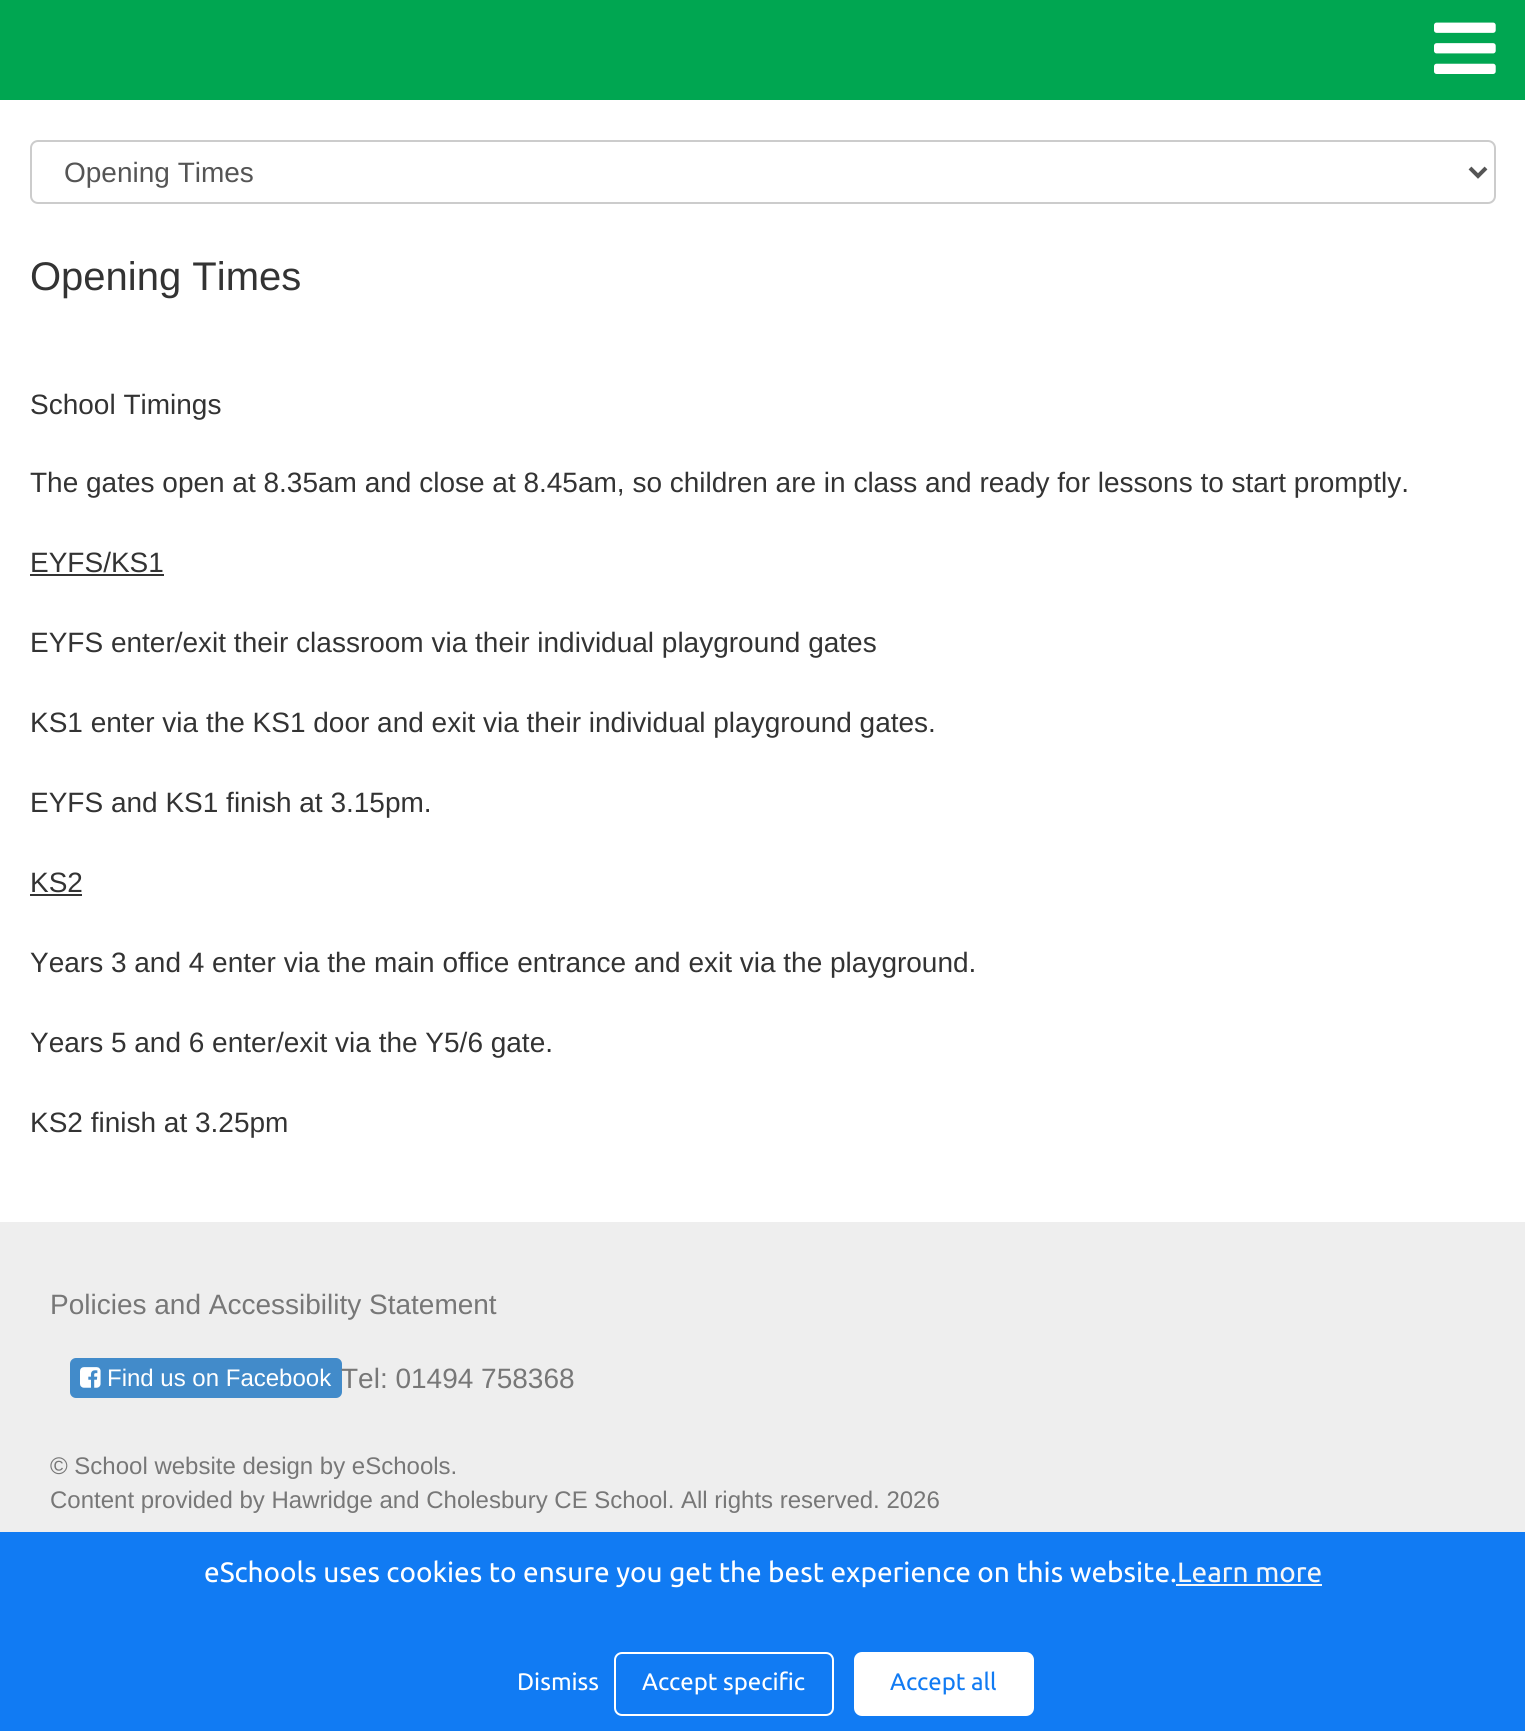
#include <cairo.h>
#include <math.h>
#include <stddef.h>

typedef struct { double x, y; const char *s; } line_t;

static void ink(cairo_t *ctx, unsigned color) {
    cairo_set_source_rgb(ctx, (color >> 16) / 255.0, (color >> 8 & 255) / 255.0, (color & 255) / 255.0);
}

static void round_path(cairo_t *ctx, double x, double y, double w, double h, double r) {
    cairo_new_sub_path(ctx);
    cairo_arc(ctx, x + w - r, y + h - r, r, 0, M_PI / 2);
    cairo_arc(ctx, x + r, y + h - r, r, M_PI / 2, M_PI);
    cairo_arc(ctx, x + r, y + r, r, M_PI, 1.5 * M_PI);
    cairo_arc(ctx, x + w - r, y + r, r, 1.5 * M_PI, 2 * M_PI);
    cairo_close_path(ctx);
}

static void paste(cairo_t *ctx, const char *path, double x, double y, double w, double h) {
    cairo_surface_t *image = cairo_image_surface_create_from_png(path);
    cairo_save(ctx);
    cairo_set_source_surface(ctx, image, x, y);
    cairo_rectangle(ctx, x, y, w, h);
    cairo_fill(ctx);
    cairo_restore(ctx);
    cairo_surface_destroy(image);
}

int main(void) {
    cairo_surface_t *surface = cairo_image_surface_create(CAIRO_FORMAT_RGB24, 1525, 1731);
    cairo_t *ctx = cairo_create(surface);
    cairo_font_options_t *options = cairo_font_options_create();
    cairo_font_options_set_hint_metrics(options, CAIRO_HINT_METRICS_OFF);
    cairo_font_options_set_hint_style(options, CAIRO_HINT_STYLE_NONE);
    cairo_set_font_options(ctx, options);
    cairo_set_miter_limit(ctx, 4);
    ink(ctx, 0x00A651);
    cairo_paint(ctx);
    paste(ctx, "media/1.png", 1434, 22, 62, 52);
    ink(ctx, 0xFFFFFF);
    cairo_rectangle(ctx, 0, 100, 1525, 1122);
    cairo_fill(ctx);
    round_path(ctx, 31, 141, 1464, 62, 7);
    ink(ctx, 0xCCCCCC);
    cairo_stroke(ctx);
    cairo_new_path(ctx);
    cairo_move_to(ctx, 1470, 168);
    cairo_line_to(ctx, 1478, 176);
    cairo_line_to(ctx, 1486, 168);
    ink(ctx, 0x555555);
    cairo_set_line_width(ctx, 4);
    cairo_stroke(ctx);
    cairo_select_font_face(ctx, "Liberation Sans", CAIRO_FONT_SLANT_NORMAL, CAIRO_FONT_WEIGHT_NORMAL);
    cairo_set_font_size(ctx, 28);
    cairo_move_to(ctx, 64, 182);
    cairo_show_text(ctx, "Opening Times");
    cairo_set_font_size(ctx, 40);
    ink(ctx, 0x333333);
    cairo_move_to(ctx, 30, 290);
    cairo_show_text(ctx, "Opening Times");
    cairo_set_font_size(ctx, 28);
    {
        static const line_t items[] = {
            {30, 414, "School Timings"},
            {30, 492, "The gates open at 8.35am and close at 8.45am, so children are in class and ready for lessons to start promptly."},
            {30, 572, "EYFS/KS1"},
        };
        for (size_t i = 0; i < sizeof items / sizeof *items; i++) {
            cairo_move_to(ctx, items[i].x, items[i].y);
            cairo_show_text(ctx, items[i].s);
        }
    }
    cairo_rectangle(ctx, 30, 574, 134, 2);
    cairo_fill(ctx);
    {
        static const line_t items[] = {
            {30, 652, "EYFS enter/exit their classroom via their individual playground gates"},
            {30, 732, "KS1 enter via the KS1 door and exit via their individual playground gates."},
            {30, 812, "EYFS and KS1 finish at 3.15pm."},
            {30, 892, "KS2"},
        };
        for (size_t i = 0; i < sizeof items / sizeof *items; i++) {
            cairo_move_to(ctx, items[i].x, items[i].y);
            cairo_show_text(ctx, items[i].s);
        }
    }
    cairo_rectangle(ctx, 30, 894, 52, 2);
    cairo_fill(ctx);
    {
        static const line_t items[] = {
            {30, 972, "Years 3 and 4 enter via the main office entrance and exit via the playground."},
            {30, 1052, "Years 5 and 6 enter/exit via the Y5/6 gate."},
            {30, 1132, "KS2 finish at 3.25pm"},
        };
        for (size_t i = 0; i < sizeof items / sizeof *items; i++) {
            cairo_move_to(ctx, items[i].x, items[i].y);
            cairo_show_text(ctx, items[i].s);
        }
    }
    ink(ctx, 0xEEEEEE);
    cairo_rectangle(ctx, 0, 1222, 1525, 310);
    cairo_fill(ctx);
    ink(ctx, 0x777777);
    cairo_move_to(ctx, 50, 1314);
    cairo_show_text(ctx, "Policies and Accessibility Statement");
    ink(ctx, 0x428BCA);
    round_path(ctx, 70, 1358, 272, 40, 6);
    cairo_fill(ctx);
    paste(ctx, "media/2.png", 80, 1367, 21, 21);
    cairo_set_font_size(ctx, 24);
    ink(ctx, 0xFFFFFF);
    cairo_move_to(ctx, 107, 1386);
    cairo_show_text(ctx, "Find us on Facebook");
    cairo_set_font_size(ctx, 28);
    ink(ctx, 0x777777);
    cairo_move_to(ctx, 341, 1388);
    cairo_show_text(ctx, "Tel: 01494 758368");
    cairo_set_font_size(ctx, 24);
    cairo_move_to(ctx, 50, 1474);
    cairo_show_text(ctx, "© School website design by eSchools.");
    cairo_move_to(ctx, 50, 1508);
    cairo_show_text(ctx, "Content provided by Hawridge and Cholesbury CE School. All rights reserved. 2026");
    ink(ctx, 0x117BF3);
    cairo_rectangle(ctx, 0, 1532, 1525, 199);
    cairo_fill(ctx);
    cairo_select_font_face(ctx, "Ubuntu", CAIRO_FONT_SLANT_NORMAL, CAIRO_FONT_WEIGHT_NORMAL);
    cairo_set_font_size(ctx, 28);
    ink(ctx, 0xFFFFFF);
    cairo_move_to(ctx, 204, 1582);
    cairo_show_text(ctx, "eSchools uses cookies to ensure you get the best experience on this website.");
    ink(ctx, 0xF7F7F7);
    cairo_rectangle(ctx, 1176, 1584, 146, 2);
    cairo_fill(ctx);
    cairo_move_to(ctx, 1177, 1582);
    cairo_show_text(ctx, "Learn more");
    cairo_set_font_size(ctx, 24);
    ink(ctx, 0xFFFFFF);
    cairo_move_to(ctx, 517, 1690);
    cairo_show_text(ctx, "Dismiss");
    round_path(ctx, 615, 1653, 218, 62, 7);
    cairo_set_line_width(ctx, 2);
    cairo_stroke(ctx);
    cairo_move_to(ctx, 642, 1690);
    cairo_show_text(ctx, "Accept specific");
    round_path(ctx, 855, 1653, 178, 62, 7);
    cairo_fill_preserve(ctx);
    cairo_stroke(ctx);
    ink(ctx, 0x117BF3);
    cairo_move_to(ctx, 890, 1690);
    cairo_show_text(ctx, "Accept all");
    cairo_surface_write_to_png(surface, "image.png");
    cairo_font_options_destroy(options);
    cairo_destroy(ctx);
    cairo_surface_destroy(surface);
    return 0;
}
